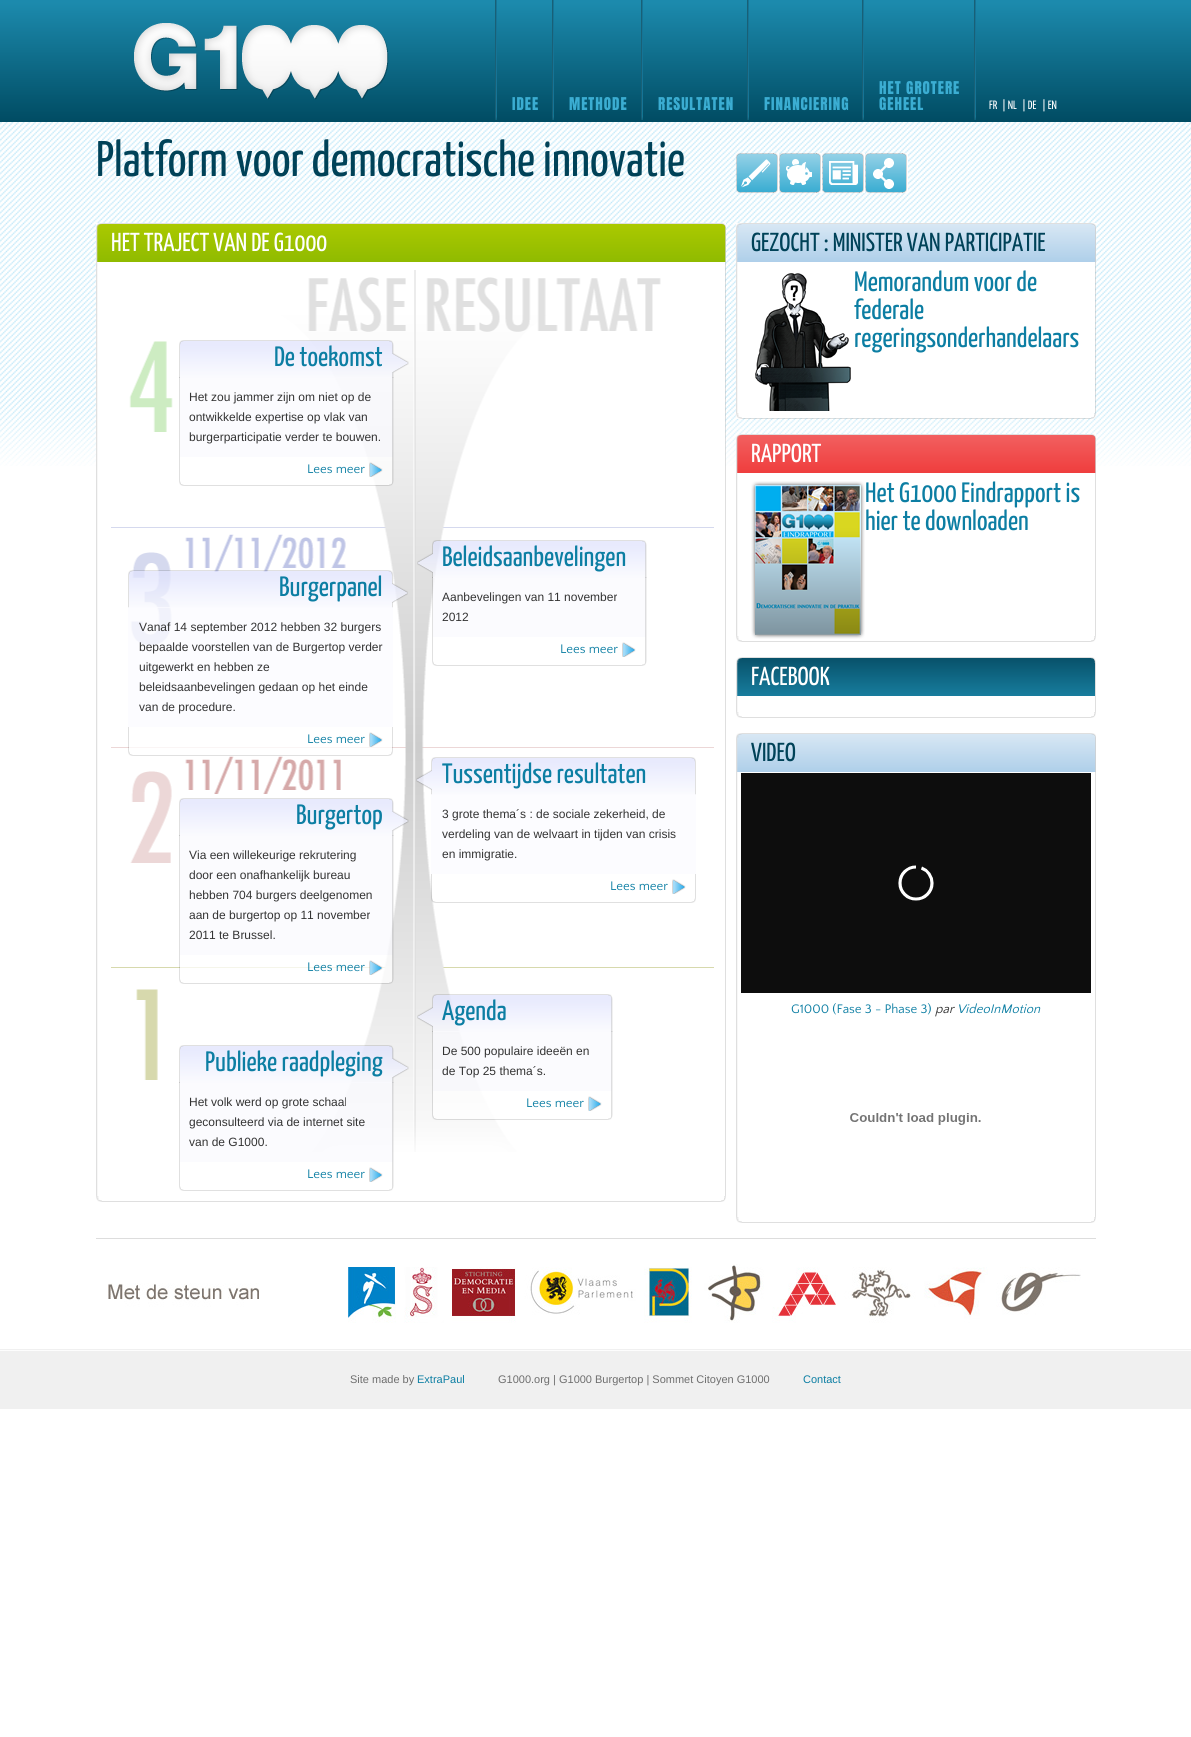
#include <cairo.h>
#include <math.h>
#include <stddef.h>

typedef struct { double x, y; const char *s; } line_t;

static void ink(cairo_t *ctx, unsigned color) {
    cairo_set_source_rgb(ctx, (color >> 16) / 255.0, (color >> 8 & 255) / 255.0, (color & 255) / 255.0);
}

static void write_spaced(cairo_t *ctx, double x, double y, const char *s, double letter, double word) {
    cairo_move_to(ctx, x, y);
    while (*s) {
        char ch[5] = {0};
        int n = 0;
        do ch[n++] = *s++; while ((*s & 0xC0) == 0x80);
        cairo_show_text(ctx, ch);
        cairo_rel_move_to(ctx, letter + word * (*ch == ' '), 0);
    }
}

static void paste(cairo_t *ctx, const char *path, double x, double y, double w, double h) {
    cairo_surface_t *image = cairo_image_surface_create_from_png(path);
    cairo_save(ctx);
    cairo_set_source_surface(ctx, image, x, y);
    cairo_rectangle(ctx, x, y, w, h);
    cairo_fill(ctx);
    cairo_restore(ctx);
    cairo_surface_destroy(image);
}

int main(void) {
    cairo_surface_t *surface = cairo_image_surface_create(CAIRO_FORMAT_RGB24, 1191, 1737);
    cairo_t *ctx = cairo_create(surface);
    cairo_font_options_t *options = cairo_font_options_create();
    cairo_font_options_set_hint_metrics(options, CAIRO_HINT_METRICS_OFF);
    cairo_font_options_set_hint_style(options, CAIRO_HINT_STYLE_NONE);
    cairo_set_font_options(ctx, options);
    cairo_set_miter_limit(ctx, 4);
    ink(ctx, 0xFFFFFF);
    cairo_paint(ctx);
    paste(ctx, "media/1.png", 0, 122, 1191, 344);
    paste(ctx, "media/2.png", 0, 0, 1191, 122);
    paste(ctx, "media/3.png", 134, 23, 255, 77);
    paste(ctx, "media/4.png", 495, 0, 2, 120);
    cairo_select_font_face(ctx, "Anton", CAIRO_FONT_SLANT_NORMAL, CAIRO_FONT_WEIGHT_NORMAL);
    cairo_set_font_size(ctx, 15);
    ink(ctx, 0x3BADD2);
    write_spaced(ctx, 512, 110, "IDEE", 1, 0);
    paste(ctx, "media/4.png", 552, 0, 2, 120);
    write_spaced(ctx, 569, 110, "METHODE", 1, 0);
    paste(ctx, "media/4.png", 641, 0, 2, 120);
    write_spaced(ctx, 658, 110, "RESULTATEN", 1, 0);
    paste(ctx, "media/4.png", 747, 0, 2, 120);
    write_spaced(ctx, 764, 110, "FINANCIERING", 1, 0);
    paste(ctx, "media/4.png", 862, 0, 2, 120);
    write_spaced(ctx, 879, 94, "HET GROTERE", 1, 0);
    write_spaced(ctx, 879, 110, "GEHEEL", 1, 0);
    paste(ctx, "media/4.png", 974, 0, 2, 120);
    cairo_select_font_face(ctx, "Yanone Kaffeesatz", CAIRO_FONT_SLANT_NORMAL, CAIRO_FONT_WEIGHT_NORMAL);
    cairo_set_font_size(ctx, 12);
    ink(ctx, 0xFFFFFF);
    {
        static const line_t items[] = {
            {989, 109, "FR"},
            {1002, 109, "| NL"},
            {1022, 109, "| DE"},
            {1042, 109, "| EN"},
        };
        for (size_t i = 0; i < sizeof items / sizeof *items; i++) {
            cairo_move_to(ctx, items[i].x, items[i].y);
            cairo_show_text(ctx, items[i].s);
        }
    }
    cairo_set_font_size(ctx, 50);
    ink(ctx, 0x004258);
    cairo_move_to(ctx, 96, 176);
    cairo_show_text(ctx, "Platform voor democratische innovatie");
    paste(ctx, "media/5.png", 773, 153, 6, 40);
    paste(ctx, "media/6.png", 736, 153, 38, 40);
    paste(ctx, "media/5.png", 816, 153, 6, 40);
    paste(ctx, "media/7.png", 779, 153, 38, 40);
    paste(ctx, "media/5.png", 859, 153, 6, 40);
    paste(ctx, "media/8.png", 822, 153, 38, 40);
    paste(ctx, "media/5.png", 902, 153, 6, 40);
    paste(ctx, "media/9.png", 865, 153, 38, 40);
    paste(ctx, "media/10.png", 96, 262, 630, 940);
    paste(ctx, "media/11.png", 102, 223, 624, 39);
    paste(ctx, "media/12.png", 96, 223, 6, 39);
    cairo_set_font_size(ctx, 26);
    ink(ctx, 0xFFFFFF);
    cairo_move_to(ctx, 111, 251);
    cairo_show_text(ctx, "HET TRAJECT VAN DE G1000");
    paste(ctx, "media/13.png", 96, 262, 6, 940);
    paste(ctx, "media/14.png", 111, 270, 603, 882);
    paste(ctx, "media/15.png", 179, 340, 230, 38);
    cairo_set_font_size(ctx, 28);
    ink(ctx, 0x0C7EA3);
    cairo_move_to(ctx, 274, 366);
    cairo_show_text(ctx, "De toekomst");
    paste(ctx, "media/16.png", 179, 377, 215, 80);
    cairo_select_font_face(ctx, "Liberation Sans", CAIRO_FONT_SLANT_NORMAL, CAIRO_FONT_WEIGHT_NORMAL);
    cairo_set_font_size(ctx, 12);
    ink(ctx, 0x333333);
    {
        static const line_t items[] = {
            {189, 401, "Het zou jammer zijn om niet op de"},
            {189, 421, "ontwikkelde expertise op vlak van"},
            {189, 441, "burgerparticipatie verder te bouwen."},
        };
        for (size_t i = 0; i < sizeof items / sizeof *items; i++) {
            cairo_move_to(ctx, items[i].x, items[i].y);
            cairo_show_text(ctx, items[i].s);
        }
    }
    paste(ctx, "media/17.png", 179, 457, 215, 29);
    paste(ctx, "media/18.png", 369, 462, 14, 15);
    cairo_select_font_face(ctx, "Quattrocento Sans", CAIRO_FONT_SLANT_NORMAL, CAIRO_FONT_WEIGHT_NORMAL);
    cairo_set_font_size(ctx, 13);
    ink(ctx, 0x0C7EA3);
    cairo_move_to(ctx, 307, 473);
    cairo_show_text(ctx, "Lees meer");
    paste(ctx, "media/19.png", 128, 570, 280, 38);
    cairo_select_font_face(ctx, "Yanone Kaffeesatz", CAIRO_FONT_SLANT_NORMAL, CAIRO_FONT_WEIGHT_NORMAL);
    cairo_set_font_size(ctx, 28);
    cairo_move_to(ctx, 279, 596);
    cairo_show_text(ctx, "Burgerpanel");
    cairo_set_source_rgba(ctx, 0.98, 0.98, 0.996, 0.75);
    cairo_rectangle(ctx, 128, 607, 265, 120);
    cairo_fill(ctx);
    cairo_select_font_face(ctx, "Liberation Sans", CAIRO_FONT_SLANT_NORMAL, CAIRO_FONT_WEIGHT_NORMAL);
    cairo_set_font_size(ctx, 12);
    ink(ctx, 0x333333);
    {
        static const line_t items[] = {
            {139, 631, "Vanaf 14 september 2012 hebben 32 burgers"},
            {139, 651, "bepaalde voorstellen van de Burgertop verder"},
            {139, 671, "uitgewerkt en hebben ze"},
            {139, 691, "beleidsaanbevelingen gedaan op het einde"},
            {139, 711, "van de procedure."},
        };
        for (size_t i = 0; i < sizeof items / sizeof *items; i++) {
            cairo_move_to(ctx, items[i].x, items[i].y);
            cairo_show_text(ctx, items[i].s);
        }
    }
    paste(ctx, "media/20.png", 128, 727, 265, 29);
    paste(ctx, "media/21.png", 369, 732, 14, 15);
    cairo_select_font_face(ctx, "Quattrocento Sans", CAIRO_FONT_SLANT_NORMAL, CAIRO_FONT_WEIGHT_NORMAL);
    cairo_set_font_size(ctx, 13);
    ink(ctx, 0x0C7EA3);
    cairo_move_to(ctx, 307, 743);
    cairo_show_text(ctx, "Lees meer");
    paste(ctx, "media/22.png", 179, 798, 230, 38);
    cairo_select_font_face(ctx, "Yanone Kaffeesatz", CAIRO_FONT_SLANT_NORMAL, CAIRO_FONT_WEIGHT_NORMAL);
    cairo_set_font_size(ctx, 28);
    cairo_move_to(ctx, 296, 824);
    cairo_show_text(ctx, "Burgertop");
    paste(ctx, "media/23.png", 179, 835, 215, 120);
    cairo_select_font_face(ctx, "Liberation Sans", CAIRO_FONT_SLANT_NORMAL, CAIRO_FONT_WEIGHT_NORMAL);
    cairo_set_font_size(ctx, 12);
    ink(ctx, 0x333333);
    {
        static const line_t items[] = {
            {189, 859, "Via een willekeurige rekrutering"},
            {189, 879, "door een onafhankelijk bureau"},
            {189, 899, "hebben 704 burgers deelgenomen"},
            {189, 919, "aan de burgertop op 11 november"},
            {189, 939, "2011 te Brussel."},
        };
        for (size_t i = 0; i < sizeof items / sizeof *items; i++) {
            cairo_move_to(ctx, items[i].x, items[i].y);
            cairo_show_text(ctx, items[i].s);
        }
    }
    paste(ctx, "media/24.png", 179, 955, 215, 29);
    paste(ctx, "media/25.png", 369, 960, 14, 15);
    cairo_select_font_face(ctx, "Quattrocento Sans", CAIRO_FONT_SLANT_NORMAL, CAIRO_FONT_WEIGHT_NORMAL);
    cairo_set_font_size(ctx, 13);
    ink(ctx, 0x0C7EA3);
    cairo_move_to(ctx, 307, 971);
    cairo_show_text(ctx, "Lees meer");
    paste(ctx, "media/26.png", 179, 1045, 230, 38);
    cairo_select_font_face(ctx, "Yanone Kaffeesatz", CAIRO_FONT_SLANT_NORMAL, CAIRO_FONT_WEIGHT_NORMAL);
    cairo_set_font_size(ctx, 28);
    cairo_move_to(ctx, 205, 1071);
    cairo_show_text(ctx, "Publieke raadpleging");
    paste(ctx, "media/27.png", 179, 1082, 215, 80);
    cairo_select_font_face(ctx, "Liberation Sans", CAIRO_FONT_SLANT_NORMAL, CAIRO_FONT_WEIGHT_NORMAL);
    cairo_set_font_size(ctx, 12);
    ink(ctx, 0x333333);
    {
        static const line_t items[] = {
            {189, 1106, "Het volk werd op grote schaal"},
            {189, 1126, "geconsulteerd via de internet site"},
            {189, 1146, "van de G1000."},
        };
        for (size_t i = 0; i < sizeof items / sizeof *items; i++) {
            cairo_move_to(ctx, items[i].x, items[i].y);
            cairo_show_text(ctx, items[i].s);
        }
    }
    paste(ctx, "media/28.png", 179, 1162, 215, 29);
    paste(ctx, "media/21.png", 369, 1167, 14, 15);
    cairo_select_font_face(ctx, "Quattrocento Sans", CAIRO_FONT_SLANT_NORMAL, CAIRO_FONT_WEIGHT_NORMAL);
    cairo_set_font_size(ctx, 13);
    ink(ctx, 0x0C7EA3);
    cairo_move_to(ctx, 307, 1178);
    cairo_show_text(ctx, "Lees meer");
    paste(ctx, "media/29.png", 417, 540, 230, 38);
    cairo_select_font_face(ctx, "Yanone Kaffeesatz", CAIRO_FONT_SLANT_NORMAL, CAIRO_FONT_WEIGHT_NORMAL);
    cairo_set_font_size(ctx, 28);
    cairo_move_to(ctx, 442, 566);
    cairo_show_text(ctx, "Beleidsaanbevelingen");
    paste(ctx, "media/30.png", 432, 577, 215, 60);
    cairo_select_font_face(ctx, "Liberation Sans", CAIRO_FONT_SLANT_NORMAL, CAIRO_FONT_WEIGHT_NORMAL);
    cairo_set_font_size(ctx, 12);
    ink(ctx, 0x333333);
    cairo_move_to(ctx, 442, 601);
    cairo_show_text(ctx, "Aanbevelingen van 11 november");
    cairo_move_to(ctx, 442, 621);
    cairo_show_text(ctx, "2012");
    paste(ctx, "media/28.png", 432, 637, 215, 29);
    paste(ctx, "media/21.png", 622, 642, 14, 15);
    cairo_select_font_face(ctx, "Quattrocento Sans", CAIRO_FONT_SLANT_NORMAL, CAIRO_FONT_WEIGHT_NORMAL);
    cairo_set_font_size(ctx, 13);
    ink(ctx, 0x0C7EA3);
    cairo_move_to(ctx, 560, 653);
    cairo_show_text(ctx, "Lees meer");
    paste(ctx, "media/31.png", 416, 757, 280, 38);
    cairo_select_font_face(ctx, "Yanone Kaffeesatz", CAIRO_FONT_SLANT_NORMAL, CAIRO_FONT_WEIGHT_NORMAL);
    cairo_set_font_size(ctx, 28);
    cairo_move_to(ctx, 442, 783);
    cairo_show_text(ctx, "Tussentijdse resultaten");
    cairo_set_source_rgba(ctx, 0.98, 0.98, 0.996, 0.75);
    cairo_rectangle(ctx, 431, 794, 265, 80);
    cairo_fill(ctx);
    cairo_select_font_face(ctx, "Liberation Sans", CAIRO_FONT_SLANT_NORMAL, CAIRO_FONT_WEIGHT_NORMAL);
    cairo_set_font_size(ctx, 12);
    ink(ctx, 0x333333);
    {
        static const line_t items[] = {
            {442, 818, "3 grote thema´s : de sociale zekerheid, de"},
            {442, 838, "verdeling van de welvaart in tijden van crisis"},
            {442, 858, "en immigratie."},
        };
        for (size_t i = 0; i < sizeof items / sizeof *items; i++) {
            cairo_move_to(ctx, items[i].x, items[i].y);
            cairo_show_text(ctx, items[i].s);
        }
    }
    paste(ctx, "media/32.png", 431, 874, 265, 29);
    paste(ctx, "media/21.png", 672, 879, 14, 15);
    cairo_select_font_face(ctx, "Quattrocento Sans", CAIRO_FONT_SLANT_NORMAL, CAIRO_FONT_WEIGHT_NORMAL);
    cairo_set_font_size(ctx, 13);
    ink(ctx, 0x0C7EA3);
    cairo_move_to(ctx, 610, 890);
    cairo_show_text(ctx, "Lees meer");
    paste(ctx, "media/33.png", 417, 994, 196, 38);
    cairo_select_font_face(ctx, "Yanone Kaffeesatz", CAIRO_FONT_SLANT_NORMAL, CAIRO_FONT_WEIGHT_NORMAL);
    cairo_set_font_size(ctx, 28);
    cairo_move_to(ctx, 442, 1020);
    cairo_show_text(ctx, "Agenda");
    paste(ctx, "media/34.png", 432, 1031, 181, 60);
    cairo_select_font_face(ctx, "Liberation Sans", CAIRO_FONT_SLANT_NORMAL, CAIRO_FONT_WEIGHT_NORMAL);
    cairo_set_font_size(ctx, 12);
    ink(ctx, 0x333333);
    cairo_move_to(ctx, 442, 1055);
    cairo_show_text(ctx, "De 500 populaire ideeën en");
    cairo_move_to(ctx, 442, 1075);
    cairo_show_text(ctx, "de Top 25 thema´s.");
    paste(ctx, "media/35.png", 432, 1091, 181, 29);
    paste(ctx, "media/21.png", 588, 1096, 14, 15);
    cairo_select_font_face(ctx, "Quattrocento Sans", CAIRO_FONT_SLANT_NORMAL, CAIRO_FONT_WEIGHT_NORMAL);
    cairo_set_font_size(ctx, 13);
    ink(ctx, 0x0C7EA3);
    cairo_move_to(ctx, 526, 1107);
    cairo_show_text(ctx, "Lees meer");
    paste(ctx, "media/36.png", 736, 262, 360, 157);
    paste(ctx, "media/37.png", 742, 223, 354, 39);
    paste(ctx, "media/38.png", 736, 223, 6, 39);
    cairo_select_font_face(ctx, "Yanone Kaffeesatz", CAIRO_FONT_SLANT_NORMAL, CAIRO_FONT_WEIGHT_NORMAL);
    cairo_set_font_size(ctx, 26);
    ink(ctx, 0x004258);
    cairo_move_to(ctx, 751, 251);
    cairo_show_text(ctx, "GEZOCHT : MINISTER VAN PARTICIPATIE");
    paste(ctx, "media/39.png", 736, 262, 7, 157);
    paste(ctx, "media/40.png", 755, 273, 96, 138);
    cairo_set_font_size(ctx, 28);
    ink(ctx, 0x0C7EA3);
    {
        static const line_t items[] = {
            {854, 291, "Memorandum voor de"},
            {854, 319, "federale"},
            {854, 347, "regeringsonderhandelaars"},
        };
        for (size_t i = 0; i < sizeof items / sizeof *items; i++) {
            cairo_move_to(ctx, items[i].x, items[i].y);
            cairo_show_text(ctx, items[i].s);
        }
    }
    paste(ctx, "media/41.png", 736, 473, 360, 169);
    paste(ctx, "media/42.png", 742, 434, 354, 39);
    paste(ctx, "media/43.png", 736, 434, 6, 39);
    cairo_set_font_size(ctx, 26);
    ink(ctx, 0xFFFFFF);
    cairo_move_to(ctx, 751, 462);
    cairo_show_text(ctx, "RAPPORT");
    paste(ctx, "media/44.png", 736, 473, 6, 169);
    paste(ctx, "media/45.png", 751, 481, 114, 158);
    cairo_set_font_size(ctx, 28);
    ink(ctx, 0x0C7EA3);
    cairo_move_to(ctx, 865, 502);
    cairo_show_text(ctx, "Het G1000 Eindrapport is");
    cairo_move_to(ctx, 865, 530);
    cairo_show_text(ctx, "hier te downloaden");
    paste(ctx, "media/46.png", 736, 696, 360, 22);
    paste(ctx, "media/47.png", 742, 657, 354, 39);
    paste(ctx, "media/48.png", 736, 657, 6, 39);
    cairo_set_font_size(ctx, 26);
    ink(ctx, 0xFFFFFF);
    cairo_move_to(ctx, 751, 685);
    cairo_show_text(ctx, "FACEBOOK");
    paste(ctx, "media/49.png", 736, 696, 6, 22);
    paste(ctx, "media/50.png", 736, 772, 360, 451);
    paste(ctx, "media/37.png", 742, 733, 354, 39);
    paste(ctx, "media/38.png", 736, 733, 6, 39);
    ink(ctx, 0x004258);
    cairo_move_to(ctx, 751, 761);
    cairo_show_text(ctx, "VIDEO");
    paste(ctx, "media/51.png", 736, 772, 6, 451);
    paste(ctx, "media/52.png", 741, 773, 350, 220);
    cairo_select_font_face(ctx, "Quattrocento Sans", CAIRO_FONT_SLANT_NORMAL, CAIRO_FONT_WEIGHT_NORMAL);
    cairo_set_font_size(ctx, 13);
    ink(ctx, 0x0C7EA3);
    cairo_move_to(ctx, 791, 1013);
    cairo_show_text(ctx, "G1000 (Fase 3 - Phase 3)");
    cairo_select_font_face(ctx, "Quattrocento Sans", CAIRO_FONT_SLANT_ITALIC, CAIRO_FONT_WEIGHT_NORMAL);
    ink(ctx, 0x333333);
    cairo_move_to(ctx, 935, 1013);
    cairo_show_text(ctx, "par");
    ink(ctx, 0x0C7EA3);
    cairo_move_to(ctx, 957, 1013);
    cairo_show_text(ctx, "VideoInMotion");
    paste(ctx, "media/53.png", 850, 1113, 131, 12);
    ink(ctx, 0xDDDDDD);
    cairo_rectangle(ctx, 96, 1238, 1000, 1);
    cairo_fill(ctx);
    paste(ctx, "media/54.png", 108, 1264, 973, 59);
    paste(ctx, "media/55.png", 0, 1349, 1191, 60);
    cairo_select_font_face(ctx, "Liberation Sans", CAIRO_FONT_SLANT_NORMAL, CAIRO_FONT_WEIGHT_NORMAL);
    cairo_set_font_size(ctx, 11);
    ink(ctx, 0x6E6E6E);
    cairo_move_to(ctx, 350, 1383);
    cairo_show_text(ctx, "Site made by");
    ink(ctx, 0x0C7EA3);
    cairo_move_to(ctx, 417, 1383);
    cairo_show_text(ctx, "ExtraPaul");
    ink(ctx, 0x6E6E6E);
    cairo_move_to(ctx, 498, 1383);
    cairo_show_text(ctx, "G1000.org | G1000 Burgertop | Sommet Citoyen G1000");
    ink(ctx, 0x0C7EA3);
    cairo_move_to(ctx, 803, 1383);
    cairo_show_text(ctx, "Contact");
    cairo_surface_write_to_png(surface, "image.png");
    cairo_font_options_destroy(options);
    cairo_destroy(ctx);
    cairo_surface_destroy(surface);
    return 0;
}
